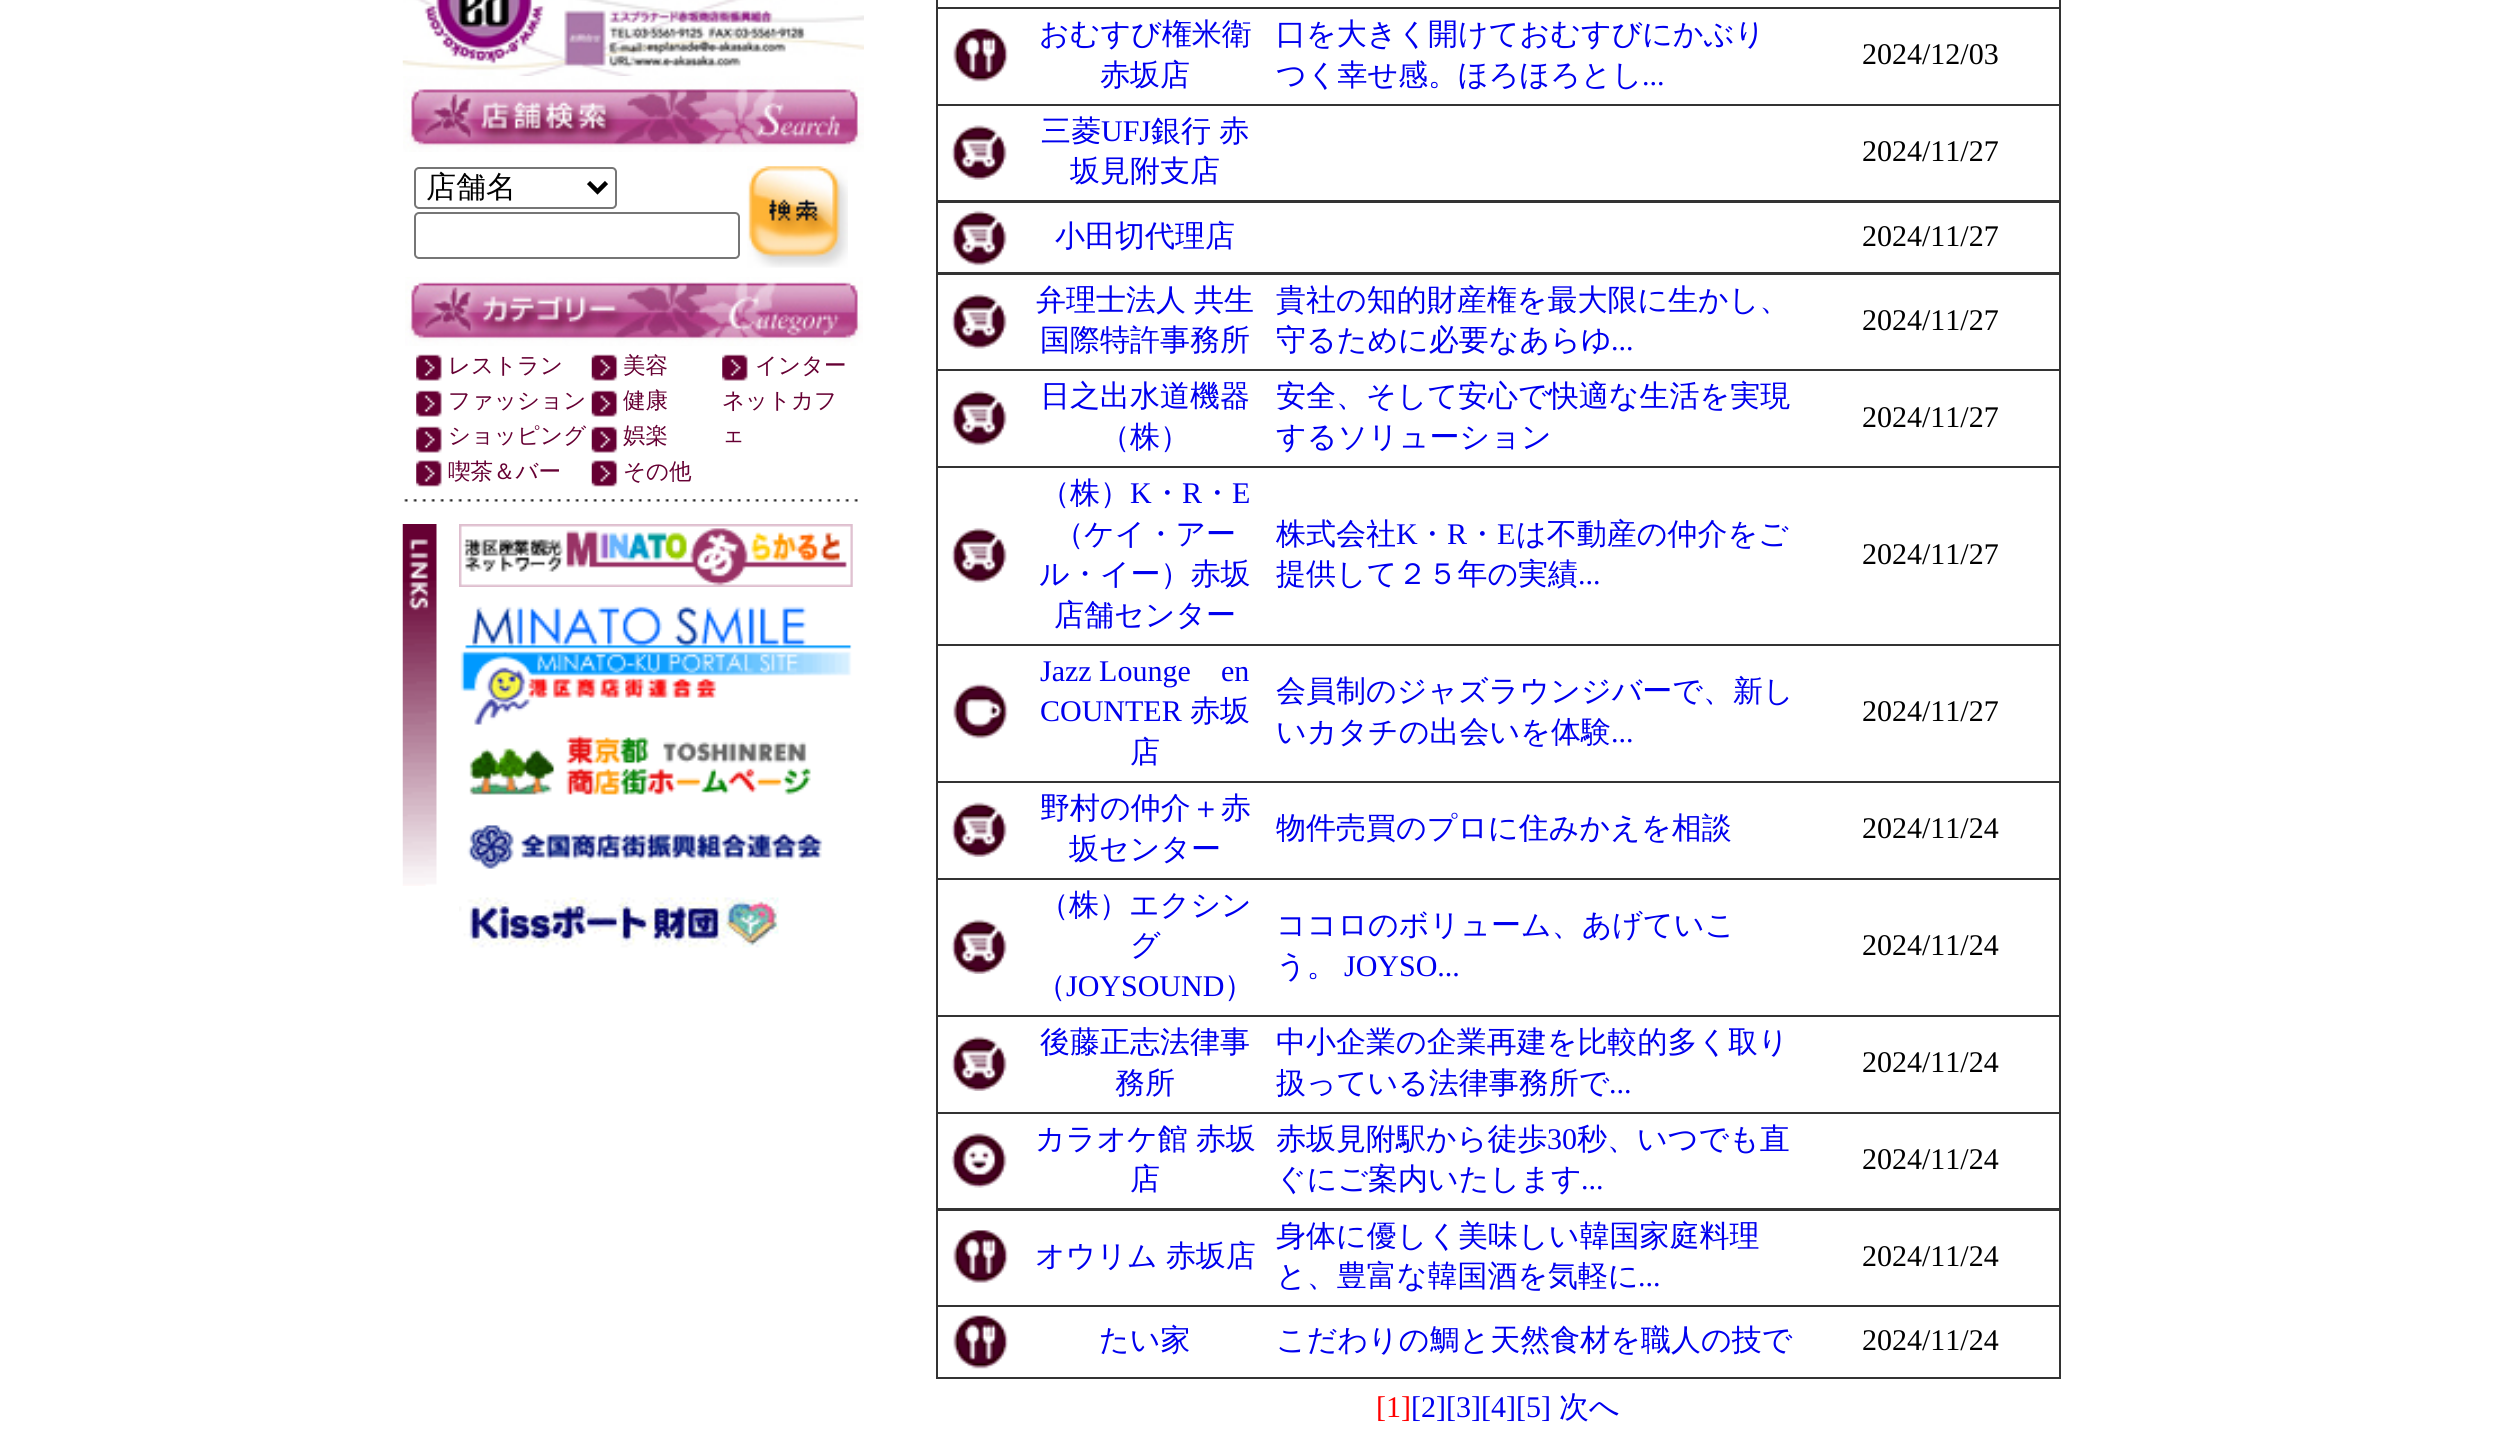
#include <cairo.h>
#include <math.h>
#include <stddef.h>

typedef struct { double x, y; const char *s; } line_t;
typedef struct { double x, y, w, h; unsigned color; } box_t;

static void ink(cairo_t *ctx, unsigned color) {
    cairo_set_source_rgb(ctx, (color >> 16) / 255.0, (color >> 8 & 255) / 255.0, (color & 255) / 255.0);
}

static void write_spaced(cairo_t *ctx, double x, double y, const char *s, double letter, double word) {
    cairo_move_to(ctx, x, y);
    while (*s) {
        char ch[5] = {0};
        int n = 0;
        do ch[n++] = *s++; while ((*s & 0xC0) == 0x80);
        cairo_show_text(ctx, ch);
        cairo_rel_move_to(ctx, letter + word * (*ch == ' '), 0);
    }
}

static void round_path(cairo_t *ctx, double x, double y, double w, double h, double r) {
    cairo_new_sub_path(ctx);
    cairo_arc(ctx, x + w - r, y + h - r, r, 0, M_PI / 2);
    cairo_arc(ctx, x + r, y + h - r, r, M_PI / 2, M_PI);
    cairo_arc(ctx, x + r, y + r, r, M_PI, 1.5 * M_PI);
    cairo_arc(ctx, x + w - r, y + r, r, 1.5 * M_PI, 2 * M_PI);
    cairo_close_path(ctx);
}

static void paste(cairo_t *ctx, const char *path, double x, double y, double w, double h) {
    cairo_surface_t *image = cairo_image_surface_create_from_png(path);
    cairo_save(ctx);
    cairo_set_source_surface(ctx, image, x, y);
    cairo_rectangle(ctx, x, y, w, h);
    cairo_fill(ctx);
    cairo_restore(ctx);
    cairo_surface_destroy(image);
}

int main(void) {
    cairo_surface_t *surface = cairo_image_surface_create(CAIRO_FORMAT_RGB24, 2503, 1444);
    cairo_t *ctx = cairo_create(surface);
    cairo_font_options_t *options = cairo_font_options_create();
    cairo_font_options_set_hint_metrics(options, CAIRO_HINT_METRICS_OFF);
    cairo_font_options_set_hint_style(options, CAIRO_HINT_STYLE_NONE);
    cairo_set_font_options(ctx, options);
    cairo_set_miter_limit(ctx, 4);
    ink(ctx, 0xFFFFFF);
    cairo_paint(ctx);
    paste(ctx, "media/1.png", 402, 0, 462, 77);
    paste(ctx, "media/2.png", 403, 76, 461, 76);
    round_path(ctx, 415, 168, 201, 40, 4);
    ink(ctx, 0x767676);
    cairo_stroke(ctx);
    cairo_new_path(ctx);
    cairo_move_to(ctx, 588.5, 182.5);
    cairo_line_to(ctx, 597.5, 191.5);
    cairo_line_to(ctx, 606.5, 182.5);
    ink(ctx, 0x000000);
    cairo_set_line_width(ctx, 4.5);
    cairo_stroke(ctx);
    cairo_select_font_face(ctx, "WenQuanYi Zen Hei Medium", CAIRO_FONT_SLANT_NORMAL, CAIRO_FONT_WEIGHT_NORMAL);
    cairo_set_font_size(ctx, 30);
    cairo_move_to(ctx, 426, 197);
    cairo_show_text(ctx, "店舗名");
    round_path(ctx, 415, 213, 324, 45, 4);
    ink(ctx, 0x767676);
    cairo_set_line_width(ctx, 2);
    cairo_stroke(ctx);
    paste(ctx, "media/3.png", 747, 166, 101, 102);
    paste(ctx, "media/4.png", 405, 277, 458, 69);
    paste(ctx, "media/5.png", 416, 354, 26, 27);
    cairo_set_font_size(ctx, 22.5);
    ink(ctx, 0x660033);
    cairo_move_to(ctx, 448, 373);
    cairo_show_text(ctx, "レストラン");
    paste(ctx, "media/5.png", 416, 390, 26, 27);
    cairo_move_to(ctx, 448, 408);
    cairo_show_text(ctx, "ファッション");
    paste(ctx, "media/5.png", 416, 426, 26, 27);
    cairo_move_to(ctx, 448, 443);
    cairo_show_text(ctx, "ショッピング");
    paste(ctx, "media/6.png", 416, 460, 26, 27);
    cairo_move_to(ctx, 448, 479);
    cairo_show_text(ctx, "喫茶＆バー");
    paste(ctx, "media/7.png", 591, 354, 27, 27);
    cairo_move_to(ctx, 623, 373);
    cairo_show_text(ctx, "美容");
    paste(ctx, "media/7.png", 591, 390, 27, 27);
    cairo_move_to(ctx, 623, 408);
    cairo_show_text(ctx, "健康");
    paste(ctx, "media/7.png", 591, 426, 27, 27);
    cairo_move_to(ctx, 623, 443);
    cairo_show_text(ctx, "娯楽");
    paste(ctx, "media/8.png", 591, 460, 27, 27);
    cairo_move_to(ctx, 623, 479);
    cairo_show_text(ctx, "その他");
    paste(ctx, "media/9.png", 722, 354, 26, 27);
    {
        static const line_t items[] = {
            {755, 373, "インター"},
            {722, 408, "ネットカフ"},
            {722, 442, "ェ"},
        };
        for (size_t i = 0; i < sizeof items / sizeof *items; i++) {
            cairo_move_to(ctx, items[i].x, items[i].y);
            cairo_show_text(ctx, items[i].s);
        }
    }
    paste(ctx, "media/10.png", 404, 499, 454, 3);
    paste(ctx, "media/11.png", 402, 524, 35, 362);
    paste(ctx, "media/12.png", 459, 524, 394, 63);
    paste(ctx, "media/13.png", 460, 606, 392, 119);
    paste(ctx, "media/14.png", 469, 735, 342, 60);
    paste(ctx, "media/15.png", 467, 825, 356, 44);
    paste(ctx, "media/16.png", 459, 897, 320, 51);
    {
        static const box_t items[] = {
            {936, 0, 1125, 1379, 0x333333},
            {938, 0, 1121, 7, 0xFFFFFF},
            {938, 9, 1121, 95, 0xFFFFFF},
        };
        for (size_t i = 0; i < sizeof items / sizeof *items; i++) {
            ink(ctx, items[i].color);
            cairo_rectangle(ctx, items[i].x, items[i].y, items[i].w, items[i].h);
            cairo_fill(ctx);
        }
    }
    paste(ctx, "media/17.png", 953, 28, 55, 54);
    cairo_set_font_size(ctx, 30);
    ink(ctx, 0x0000EE);
    {
        static const line_t items[] = {
            {1039, 44, "おむすび権米衛"},
            {1100, 85, "赤坂店"},
            {1276, 44, "口を大きく開けておむすびにかぶり"},
            {1276, 85, "つく幸せ感。ほろほろとし"},
        };
        for (size_t i = 0; i < sizeof items / sizeof *items; i++) {
            cairo_move_to(ctx, items[i].x, items[i].y);
            cairo_show_text(ctx, items[i].s);
        }
    }
    cairo_select_font_face(ctx, "Liberation Serif", CAIRO_FONT_SLANT_NORMAL, CAIRO_FONT_WEIGHT_NORMAL);
    cairo_move_to(ctx, 1642, 85);
    cairo_show_text(ctx, "...");
    ink(ctx, 0x000000);
    cairo_move_to(ctx, 1862, 64);
    cairo_show_text(ctx, "2024/12/03");
    ink(ctx, 0xFFFFFF);
    cairo_rectangle(ctx, 938, 106, 1121, 94);
    cairo_fill(ctx);
    paste(ctx, "media/18.png", 951, 125, 56, 55);
    cairo_select_font_face(ctx, "WenQuanYi Zen Hei Medium", CAIRO_FONT_SLANT_NORMAL, CAIRO_FONT_WEIGHT_NORMAL);
    ink(ctx, 0x0000EE);
    cairo_move_to(ctx, 1041, 141);
    cairo_show_text(ctx, "三菱");
    cairo_select_font_face(ctx, "Liberation Serif", CAIRO_FONT_SLANT_NORMAL, CAIRO_FONT_WEIGHT_NORMAL);
    cairo_move_to(ctx, 1101, 141);
    cairo_show_text(ctx, "UFJ");
    cairo_select_font_face(ctx, "WenQuanYi Zen Hei Medium", CAIRO_FONT_SLANT_NORMAL, CAIRO_FONT_WEIGHT_NORMAL);
    write_spaced(ctx, 1151, 141, "銀行 赤", 0, -1);
    cairo_move_to(ctx, 1070, 181);
    cairo_show_text(ctx, "坂見附支店");
    cairo_select_font_face(ctx, "Liberation Serif", CAIRO_FONT_SLANT_NORMAL, CAIRO_FONT_WEIGHT_NORMAL);
    ink(ctx, 0x000000);
    cairo_move_to(ctx, 1862, 161);
    cairo_show_text(ctx, "2024/11/27");
    ink(ctx, 0xFFFFFF);
    cairo_rectangle(ctx, 938, 203, 1121, 69);
    cairo_fill(ctx);
    paste(ctx, "media/19.png", 951, 210, 56, 56);
    cairo_select_font_face(ctx, "WenQuanYi Zen Hei Medium", CAIRO_FONT_SLANT_NORMAL, CAIRO_FONT_WEIGHT_NORMAL);
    ink(ctx, 0x0000EE);
    cairo_move_to(ctx, 1055, 246);
    cairo_show_text(ctx, "小田切代理店");
    cairo_select_font_face(ctx, "Liberation Serif", CAIRO_FONT_SLANT_NORMAL, CAIRO_FONT_WEIGHT_NORMAL);
    ink(ctx, 0x000000);
    cairo_move_to(ctx, 1862, 246);
    cairo_show_text(ctx, "2024/11/27");
    ink(ctx, 0xFFFFFF);
    cairo_rectangle(ctx, 938, 275, 1121, 94);
    cairo_fill(ctx);
    paste(ctx, "media/20.png", 951, 294, 56, 55);
    cairo_select_font_face(ctx, "WenQuanYi Zen Hei Medium", CAIRO_FONT_SLANT_NORMAL, CAIRO_FONT_WEIGHT_NORMAL);
    ink(ctx, 0x0000EE);
    write_spaced(ctx, 1036, 310, "弁理士法人 共生", 0, -1);
    {
        static const line_t items[] = {
            {1040, 350, "国際特許事務所"},
            {1276, 310, "貴社の知的財産権を最大限に生かし、"},
            {1276, 350, "守るために必要なあらゆ"},
        };
        for (size_t i = 0; i < sizeof items / sizeof *items; i++) {
            cairo_move_to(ctx, items[i].x, items[i].y);
            cairo_show_text(ctx, items[i].s);
        }
    }
    cairo_select_font_face(ctx, "Liberation Serif", CAIRO_FONT_SLANT_NORMAL, CAIRO_FONT_WEIGHT_NORMAL);
    cairo_move_to(ctx, 1611, 350);
    cairo_show_text(ctx, "...");
    ink(ctx, 0x000000);
    cairo_move_to(ctx, 1862, 330);
    cairo_show_text(ctx, "2024/11/27");
    ink(ctx, 0xFFFFFF);
    cairo_rectangle(ctx, 938, 371, 1121, 95);
    cairo_fill(ctx);
    paste(ctx, "media/19.png", 951, 390, 56, 56);
    cairo_select_font_face(ctx, "WenQuanYi Zen Hei Medium", CAIRO_FONT_SLANT_NORMAL, CAIRO_FONT_WEIGHT_NORMAL);
    ink(ctx, 0x0000EE);
    {
        static const line_t items[] = {
            {1040, 406, "日之出水道機器"},
            {1100, 447, "（株）"},
            {1276, 406, "安全、そして安心で快適な生活を実現"},
            {1276, 447, "するソリューション"},
        };
        for (size_t i = 0; i < sizeof items / sizeof *items; i++) {
            cairo_move_to(ctx, items[i].x, items[i].y);
            cairo_show_text(ctx, items[i].s);
        }
    }
    cairo_select_font_face(ctx, "Liberation Serif", CAIRO_FONT_SLANT_NORMAL, CAIRO_FONT_WEIGHT_NORMAL);
    ink(ctx, 0x000000);
    cairo_move_to(ctx, 1862, 427);
    cairo_show_text(ctx, "2024/11/27");
    ink(ctx, 0xFFFFFF);
    cairo_rectangle(ctx, 938, 468, 1121, 176);
    cairo_fill(ctx);
    paste(ctx, "media/20.png", 951, 528, 56, 55);
    cairo_select_font_face(ctx, "WenQuanYi Zen Hei Medium", CAIRO_FONT_SLANT_NORMAL, CAIRO_FONT_WEIGHT_NORMAL);
    ink(ctx, 0x0000EE);
    cairo_move_to(ctx, 1040, 503);
    cairo_show_text(ctx, "（株）");
    cairo_select_font_face(ctx, "Liberation Serif", CAIRO_FONT_SLANT_NORMAL, CAIRO_FONT_WEIGHT_NORMAL);
    cairo_move_to(ctx, 1130, 503);
    cairo_show_text(ctx, "K");
    cairo_select_font_face(ctx, "WenQuanYi Zen Hei Medium", CAIRO_FONT_SLANT_NORMAL, CAIRO_FONT_WEIGHT_NORMAL);
    cairo_move_to(ctx, 1152, 503);
    cairo_show_text(ctx, "・");
    cairo_select_font_face(ctx, "Liberation Serif", CAIRO_FONT_SLANT_NORMAL, CAIRO_FONT_WEIGHT_NORMAL);
    cairo_move_to(ctx, 1182, 503);
    cairo_show_text(ctx, "R");
    cairo_select_font_face(ctx, "WenQuanYi Zen Hei Medium", CAIRO_FONT_SLANT_NORMAL, CAIRO_FONT_WEIGHT_NORMAL);
    cairo_move_to(ctx, 1202, 503);
    cairo_show_text(ctx, "・");
    cairo_select_font_face(ctx, "Liberation Serif", CAIRO_FONT_SLANT_NORMAL, CAIRO_FONT_WEIGHT_NORMAL);
    cairo_move_to(ctx, 1232, 503);
    cairo_show_text(ctx, "E");
    cairo_select_font_face(ctx, "WenQuanYi Zen Hei Medium", CAIRO_FONT_SLANT_NORMAL, CAIRO_FONT_WEIGHT_NORMAL);
    {
        static const line_t items[] = {
            {1054, 544, "（ケイ・アー"},
            {1039, 584, "ル・イー）赤坂"},
            {1054, 625, "店舗センター"},
            {1276, 544, "株式会社"},
        };
        for (size_t i = 0; i < sizeof items / sizeof *items; i++) {
            cairo_move_to(ctx, items[i].x, items[i].y);
            cairo_show_text(ctx, items[i].s);
        }
    }
    cairo_select_font_face(ctx, "Liberation Serif", CAIRO_FONT_SLANT_NORMAL, CAIRO_FONT_WEIGHT_NORMAL);
    cairo_move_to(ctx, 1396, 544);
    cairo_show_text(ctx, "K");
    cairo_select_font_face(ctx, "WenQuanYi Zen Hei Medium", CAIRO_FONT_SLANT_NORMAL, CAIRO_FONT_WEIGHT_NORMAL);
    cairo_move_to(ctx, 1417, 544);
    cairo_show_text(ctx, "・");
    cairo_select_font_face(ctx, "Liberation Serif", CAIRO_FONT_SLANT_NORMAL, CAIRO_FONT_WEIGHT_NORMAL);
    cairo_move_to(ctx, 1447, 544);
    cairo_show_text(ctx, "R");
    cairo_select_font_face(ctx, "WenQuanYi Zen Hei Medium", CAIRO_FONT_SLANT_NORMAL, CAIRO_FONT_WEIGHT_NORMAL);
    cairo_move_to(ctx, 1467, 544);
    cairo_show_text(ctx, "・");
    cairo_select_font_face(ctx, "Liberation Serif", CAIRO_FONT_SLANT_NORMAL, CAIRO_FONT_WEIGHT_NORMAL);
    cairo_move_to(ctx, 1497, 544);
    cairo_show_text(ctx, "E");
    cairo_select_font_face(ctx, "WenQuanYi Zen Hei Medium", CAIRO_FONT_SLANT_NORMAL, CAIRO_FONT_WEIGHT_NORMAL);
    cairo_move_to(ctx, 1516, 544);
    cairo_show_text(ctx, "は不動産の仲介をご");
    cairo_move_to(ctx, 1276, 584);
    cairo_show_text(ctx, "提供して２５年の実績");
    cairo_select_font_face(ctx, "Liberation Serif", CAIRO_FONT_SLANT_NORMAL, CAIRO_FONT_WEIGHT_NORMAL);
    cairo_move_to(ctx, 1578, 584);
    cairo_show_text(ctx, "...");
    ink(ctx, 0x000000);
    cairo_move_to(ctx, 1862, 564);
    cairo_show_text(ctx, "2024/11/27");
    ink(ctx, 0xFFFFFF);
    cairo_rectangle(ctx, 938, 646, 1121, 135);
    cairo_fill(ctx);
    paste(ctx, "media/21.png", 953, 683, 55, 56);
    ink(ctx, 0x0000EE);
    {
        static const line_t items[] = {
            {1040, 681, "Jazz Lounge"},
            {1221, 681, "en"},
            {1040, 721, "COUNTER"},
        };
        for (size_t i = 0; i < sizeof items / sizeof *items; i++) {
            cairo_move_to(ctx, items[i].x, items[i].y);
            cairo_show_text(ctx, items[i].s);
        }
    }
    cairo_select_font_face(ctx, "WenQuanYi Zen Hei Medium", CAIRO_FONT_SLANT_NORMAL, CAIRO_FONT_WEIGHT_NORMAL);
    {
        static const line_t items[] = {
            {1190, 721, "赤坂"},
            {1130, 762, "店"},
            {1276, 701, "会員制のジャズラウンジバーで、新し"},
            {1276, 742, "いカタチの出会いを体験"},
        };
        for (size_t i = 0; i < sizeof items / sizeof *items; i++) {
            cairo_move_to(ctx, items[i].x, items[i].y);
            cairo_show_text(ctx, items[i].s);
        }
    }
    cairo_select_font_face(ctx, "Liberation Serif", CAIRO_FONT_SLANT_NORMAL, CAIRO_FONT_WEIGHT_NORMAL);
    cairo_move_to(ctx, 1611, 742);
    cairo_show_text(ctx, "...");
    ink(ctx, 0x000000);
    cairo_move_to(ctx, 1862, 721);
    cairo_show_text(ctx, "2024/11/27");
    ink(ctx, 0xFFFFFF);
    cairo_rectangle(ctx, 938, 783, 1121, 95);
    cairo_fill(ctx);
    paste(ctx, "media/22.png", 951, 802, 56, 55);
    cairo_select_font_face(ctx, "WenQuanYi Zen Hei Medium", CAIRO_FONT_SLANT_NORMAL, CAIRO_FONT_WEIGHT_NORMAL);
    ink(ctx, 0x0000EE);
    {
        static const line_t items[] = {
            {1040, 818, "野村の仲介＋赤"},
            {1069, 859, "坂センター"},
            {1276, 838, "物件売買のプロに住みかえを相談"},
        };
        for (size_t i = 0; i < sizeof items / sizeof *items; i++) {
            cairo_move_to(ctx, items[i].x, items[i].y);
            cairo_show_text(ctx, items[i].s);
        }
    }
    cairo_select_font_face(ctx, "Liberation Serif", CAIRO_FONT_SLANT_NORMAL, CAIRO_FONT_WEIGHT_NORMAL);
    ink(ctx, 0x000000);
    cairo_move_to(ctx, 1862, 838);
    cairo_show_text(ctx, "2024/11/24");
    ink(ctx, 0xFFFFFF);
    cairo_rectangle(ctx, 938, 880, 1121, 135);
    cairo_fill(ctx);
    paste(ctx, "media/22.png", 951, 919, 56, 55);
    cairo_select_font_face(ctx, "WenQuanYi Zen Hei Medium", CAIRO_FONT_SLANT_NORMAL, CAIRO_FONT_WEIGHT_NORMAL);
    ink(ctx, 0x0000EE);
    {
        static const line_t items[] = {
            {1039, 915, "（株）エクシン"},
            {1130, 955, "グ"},
            {1036, 996, "（"},
        };
        for (size_t i = 0; i < sizeof items / sizeof *items; i++) {
            cairo_move_to(ctx, items[i].x, items[i].y);
            cairo_show_text(ctx, items[i].s);
        }
    }
    cairo_select_font_face(ctx, "Liberation Serif", CAIRO_FONT_SLANT_NORMAL, CAIRO_FONT_WEIGHT_NORMAL);
    cairo_move_to(ctx, 1066, 996);
    cairo_show_text(ctx, "JOYSOUND");
    cairo_select_font_face(ctx, "WenQuanYi Zen Hei Medium", CAIRO_FONT_SLANT_NORMAL, CAIRO_FONT_WEIGHT_NORMAL);
    {
        static const line_t items[] = {
            {1224, 996, "）"},
            {1276, 935, "ココロのボリューム、あげていこ"},
            {1276, 976, "う。"},
        };
        for (size_t i = 0; i < sizeof items / sizeof *items; i++) {
            cairo_move_to(ctx, items[i].x, items[i].y);
            cairo_show_text(ctx, items[i].s);
        }
    }
    cairo_select_font_face(ctx, "Liberation Serif", CAIRO_FONT_SLANT_NORMAL, CAIRO_FONT_WEIGHT_NORMAL);
    cairo_move_to(ctx, 1344, 976);
    cairo_show_text(ctx, "JOYSO...");
    ink(ctx, 0x000000);
    cairo_move_to(ctx, 1862, 955);
    cairo_show_text(ctx, "2024/11/24");
    ink(ctx, 0xFFFFFF);
    cairo_rectangle(ctx, 938, 1017, 1121, 95);
    cairo_fill(ctx);
    paste(ctx, "media/22.png", 951, 1036, 56, 55);
    cairo_select_font_face(ctx, "WenQuanYi Zen Hei Medium", CAIRO_FONT_SLANT_NORMAL, CAIRO_FONT_WEIGHT_NORMAL);
    ink(ctx, 0x0000EE);
    {
        static const line_t items[] = {
            {1040, 1052, "後藤正志法律事"},
            {1115, 1093, "務所"},
            {1276, 1052, "中小企業の企業再建を比較的多く取り"},
            {1276, 1093, "扱っている法律事務所で"},
        };
        for (size_t i = 0; i < sizeof items / sizeof *items; i++) {
            cairo_move_to(ctx, items[i].x, items[i].y);
            cairo_show_text(ctx, items[i].s);
        }
    }
    cairo_select_font_face(ctx, "Liberation Serif", CAIRO_FONT_SLANT_NORMAL, CAIRO_FONT_WEIGHT_NORMAL);
    cairo_move_to(ctx, 1609, 1093);
    cairo_show_text(ctx, "...");
    ink(ctx, 0x000000);
    cairo_move_to(ctx, 1862, 1072);
    cairo_show_text(ctx, "2024/11/24");
    ink(ctx, 0xFFFFFF);
    cairo_rectangle(ctx, 938, 1114, 1121, 94);
    cairo_fill(ctx);
    paste(ctx, "media/23.png", 951, 1133, 56, 55);
    cairo_select_font_face(ctx, "WenQuanYi Zen Hei Medium", CAIRO_FONT_SLANT_NORMAL, CAIRO_FONT_WEIGHT_NORMAL);
    ink(ctx, 0x0000EE);
    write_spaced(ctx, 1035, 1149, "カラオケ館 赤坂", 0, -1);
    cairo_move_to(ctx, 1130, 1189);
    cairo_show_text(ctx, "店");
    cairo_move_to(ctx, 1276, 1149);
    cairo_show_text(ctx, "赤坂見附駅から徒歩");
    cairo_select_font_face(ctx, "Liberation Serif", CAIRO_FONT_SLANT_NORMAL, CAIRO_FONT_WEIGHT_NORMAL);
    cairo_move_to(ctx, 1547, 1149);
    cairo_show_text(ctx, "30");
    cairo_select_font_face(ctx, "WenQuanYi Zen Hei Medium", CAIRO_FONT_SLANT_NORMAL, CAIRO_FONT_WEIGHT_NORMAL);
    cairo_move_to(ctx, 1577, 1149);
    cairo_show_text(ctx, "秒、いつでも直");
    cairo_move_to(ctx, 1276, 1189);
    cairo_show_text(ctx, "ぐにご案内いたします");
    cairo_select_font_face(ctx, "Liberation Serif", CAIRO_FONT_SLANT_NORMAL, CAIRO_FONT_WEIGHT_NORMAL);
    cairo_move_to(ctx, 1581, 1189);
    cairo_show_text(ctx, "...");
    ink(ctx, 0x000000);
    cairo_move_to(ctx, 1862, 1169);
    cairo_show_text(ctx, "2024/11/24");
    ink(ctx, 0xFFFFFF);
    cairo_rectangle(ctx, 938, 1211, 1121, 94);
    cairo_fill(ctx);
    paste(ctx, "media/24.png", 953, 1230, 55, 53);
    cairo_select_font_face(ctx, "WenQuanYi Zen Hei Medium", CAIRO_FONT_SLANT_NORMAL, CAIRO_FONT_WEIGHT_NORMAL);
    ink(ctx, 0x0000EE);
    write_spaced(ctx, 1035, 1266, "オウリム 赤坂店", 0, -1);
    cairo_move_to(ctx, 1276, 1246);
    cairo_show_text(ctx, "身体に優しく美味しい韓国家庭料理");
    cairo_move_to(ctx, 1276, 1286);
    cairo_show_text(ctx, "と、豊富な韓国酒を気軽に");
    cairo_select_font_face(ctx, "Liberation Serif", CAIRO_FONT_SLANT_NORMAL, CAIRO_FONT_WEIGHT_NORMAL);
    cairo_move_to(ctx, 1638, 1286);
    cairo_show_text(ctx, "...");
    ink(ctx, 0x000000);
    cairo_move_to(ctx, 1862, 1266);
    cairo_show_text(ctx, "2024/11/24");
    ink(ctx, 0xFFFFFF);
    cairo_rectangle(ctx, 938, 1307, 1121, 70);
    cairo_fill(ctx);
    paste(ctx, "media/17.png", 953, 1315, 55, 54);
    cairo_select_font_face(ctx, "WenQuanYi Zen Hei Medium", CAIRO_FONT_SLANT_NORMAL, CAIRO_FONT_WEIGHT_NORMAL);
    ink(ctx, 0x0000EE);
    cairo_move_to(ctx, 1099, 1350);
    cairo_show_text(ctx, "たい家");
    cairo_move_to(ctx, 1276, 1350);
    cairo_show_text(ctx, "こだわりの鯛と天然食材を職人の技で");
    cairo_select_font_face(ctx, "Liberation Serif", CAIRO_FONT_SLANT_NORMAL, CAIRO_FONT_WEIGHT_NORMAL);
    ink(ctx, 0x000000);
    cairo_move_to(ctx, 1862, 1350);
    cairo_show_text(ctx, "2024/11/24");
    ink(ctx, 0xFF0000);
    cairo_move_to(ctx, 1376, 1417);
    cairo_show_text(ctx, "[1]");
    ink(ctx, 0x0000EE);
    cairo_move_to(ctx, 1411, 1417);
    cairo_show_text(ctx, "[2][3][4][5]");
    cairo_select_font_face(ctx, "WenQuanYi Zen Hei Medium", CAIRO_FONT_SLANT_NORMAL, CAIRO_FONT_WEIGHT_NORMAL);
    cairo_move_to(ctx, 1559, 1417);
    cairo_show_text(ctx, "次へ");
    cairo_surface_write_to_png(surface, "image.png");
    cairo_font_options_destroy(options);
    cairo_destroy(ctx);
    cairo_surface_destroy(surface);
    return 0;
}
